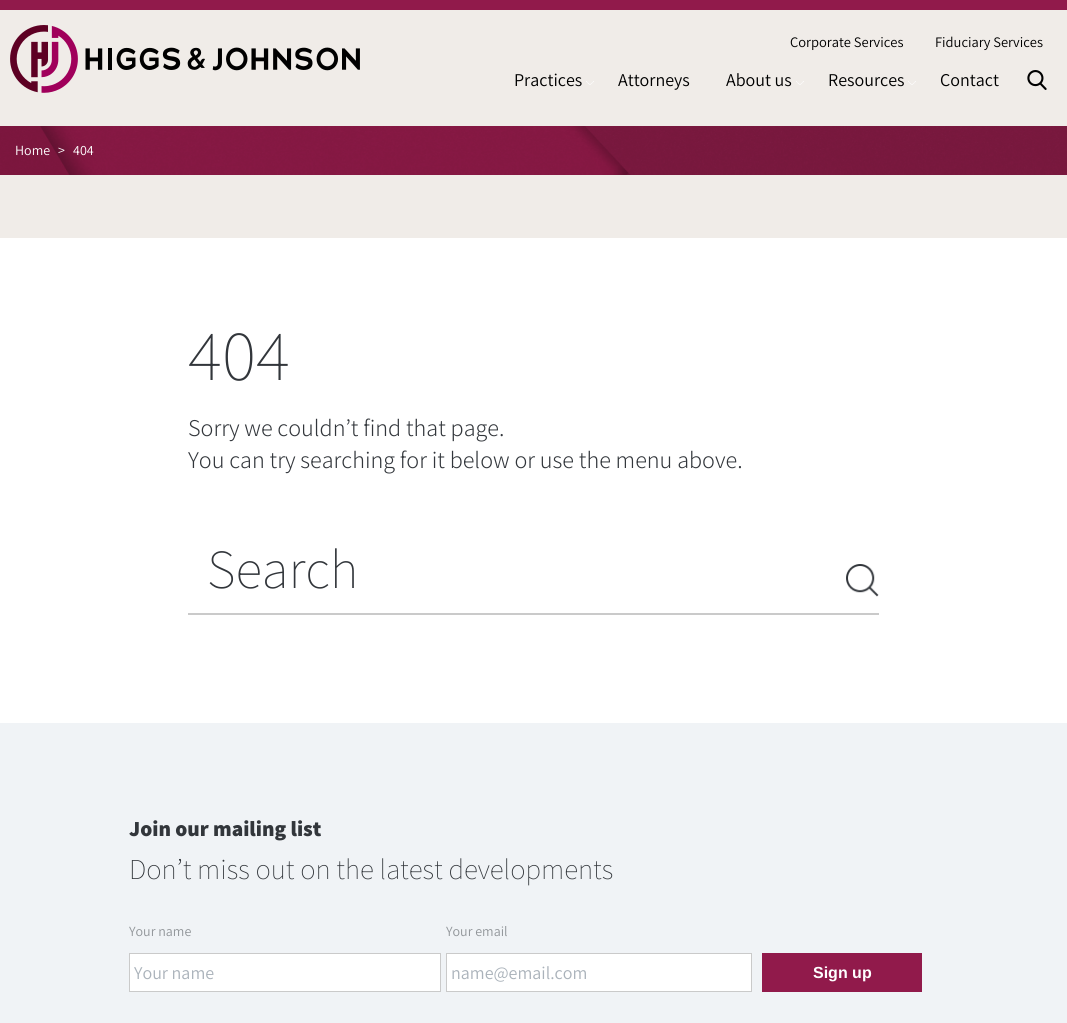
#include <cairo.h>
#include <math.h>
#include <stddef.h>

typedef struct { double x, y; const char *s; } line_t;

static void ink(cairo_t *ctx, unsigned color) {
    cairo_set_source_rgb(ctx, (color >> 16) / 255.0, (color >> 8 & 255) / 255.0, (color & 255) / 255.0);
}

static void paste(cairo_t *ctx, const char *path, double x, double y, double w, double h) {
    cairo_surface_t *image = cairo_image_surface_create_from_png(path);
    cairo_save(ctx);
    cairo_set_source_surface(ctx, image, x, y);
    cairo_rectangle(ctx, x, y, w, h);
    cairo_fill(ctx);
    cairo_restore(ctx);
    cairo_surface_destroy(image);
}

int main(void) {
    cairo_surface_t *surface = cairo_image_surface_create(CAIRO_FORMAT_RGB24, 1067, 1023);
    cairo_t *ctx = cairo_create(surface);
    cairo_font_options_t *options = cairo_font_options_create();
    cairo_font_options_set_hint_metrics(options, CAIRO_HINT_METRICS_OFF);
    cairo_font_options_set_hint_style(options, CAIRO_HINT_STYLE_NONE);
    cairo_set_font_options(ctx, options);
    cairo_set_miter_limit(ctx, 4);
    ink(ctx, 0xFFFFFF);
    cairo_paint(ctx);
    ink(ctx, 0xF0ECE8);
    cairo_rectangle(ctx, 0, 10, 1067, 228);
    cairo_fill(ctx);
    ink(ctx, 0x911A4B);
    cairo_rectangle(ctx, 0, 0, 1067, 10);
    cairo_fill(ctx);
    paste(ctx, "media/1.png", 10, 25, 350, 68);
    cairo_select_font_face(ctx, "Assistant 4 ExtraLight", CAIRO_FONT_SLANT_NORMAL, CAIRO_FONT_WEIGHT_NORMAL);
    cairo_set_font_size(ctx, 14.5);
    ink(ctx, 0x000000);
    cairo_move_to(ctx, 790, 47);
    cairo_show_text(ctx, "Corporate Services");
    cairo_move_to(ctx, 935, 47);
    cairo_show_text(ctx, "Fiduciary Services");
    cairo_set_font_size(ctx, 18);
    cairo_move_to(ctx, 514, 86);
    cairo_show_text(ctx, "Practices");
    paste(ctx, "media/2.png", 586, 81, 8, 4);
    cairo_move_to(ctx, 618, 86);
    cairo_show_text(ctx, "Attorneys");
    cairo_move_to(ctx, 726, 86);
    cairo_show_text(ctx, "About us");
    paste(ctx, "media/3.png", 796, 81, 8, 4);
    cairo_move_to(ctx, 828, 86);
    cairo_show_text(ctx, "Resources");
    paste(ctx, "media/3.png", 908, 81, 8, 4);
    cairo_move_to(ctx, 940, 86);
    cairo_show_text(ctx, "Contact");
    paste(ctx, "media/4.png", 1027, 70, 20, 20);
    paste(ctx, "media/5.png", 0, 126, 1067, 49);
    cairo_set_font_size(ctx, 14);
    ink(ctx, 0xFFFFFF);
    {
        static const line_t items[] = {
            {15, 155, "Home"},
            {58, 155, ">"},
            {73, 155, "404"},
        };
        for (size_t i = 0; i < sizeof items / sizeof *items; i++) {
            cairo_move_to(ctx, items[i].x, items[i].y);
            cairo_show_text(ctx, items[i].s);
        }
    }
    cairo_select_font_face(ctx, "Assistant ExtraLight", CAIRO_FONT_SLANT_NORMAL, CAIRO_FONT_WEIGHT_NORMAL);
    cairo_set_font_size(ctx, 72);
    ink(ctx, 0x32363B);
    cairo_move_to(ctx, 188, 380);
    cairo_show_text(ctx, "404");
    cairo_select_font_face(ctx, "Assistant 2 ExtraLight", CAIRO_FONT_SLANT_NORMAL, CAIRO_FONT_WEIGHT_NORMAL);
    cairo_set_font_size(ctx, 24);
    cairo_move_to(ctx, 188, 436);
    cairo_show_text(ctx, "Sorry we couldn’t find that page.");
    cairo_move_to(ctx, 188, 468);
    cairo_show_text(ctx, "You can try searching for it below or use the menu above.");
    ink(ctx, 0xCACACA);
    cairo_rectangle(ctx, 188, 613, 691, 2);
    cairo_fill(ctx);
    cairo_select_font_face(ctx, "Assistant ExtraLight", CAIRO_FONT_SLANT_NORMAL, CAIRO_FONT_WEIGHT_NORMAL);
    cairo_set_font_size(ctx, 55);
    ink(ctx, 0x32363B);
    cairo_move_to(ctx, 207, 588);
    cairo_show_text(ctx, "Search");
    paste(ctx, "media/6.png", 846, 564, 33, 33);
    ink(ctx, 0xF0F3F6);
    cairo_rectangle(ctx, 0, 723, 1067, 300);
    cairo_fill(ctx);
    cairo_select_font_face(ctx, "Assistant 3 ExtraLight", CAIRO_FONT_SLANT_NORMAL, CAIRO_FONT_WEIGHT_NORMAL);
    cairo_set_font_size(ctx, 21.5);
    ink(ctx, 0x32363B);
    cairo_move_to(ctx, 129, 836);
    cairo_show_text(ctx, "Join our mailing list");
    cairo_select_font_face(ctx, "Assistant ExtraLight", CAIRO_FONT_SLANT_NORMAL, CAIRO_FONT_WEIGHT_NORMAL);
    cairo_set_font_size(ctx, 28.75);
    cairo_move_to(ctx, 129, 879);
    cairo_show_text(ctx, "Don’t miss out on the latest developments");
    cairo_select_font_face(ctx, "Assistant 4 ExtraLight", CAIRO_FONT_SLANT_NORMAL, CAIRO_FONT_WEIGHT_NORMAL);
    cairo_set_font_size(ctx, 14);
    ink(ctx, 0x919599);
    cairo_move_to(ctx, 129, 936);
    cairo_show_text(ctx, "Your name");
    ink(ctx, 0xFFFFFF);
    cairo_rectangle(ctx, 129.5, 953.5, 311, 38);
    cairo_fill_preserve(ctx);
    ink(ctx, 0xCACACA);
    cairo_set_line_width(ctx, 1);
    cairo_stroke(ctx);
    cairo_set_font_size(ctx, 18);
    ink(ctx, 0xAAB2BA);
    cairo_move_to(ctx, 134, 979);
    cairo_show_text(ctx, "Your name");
    cairo_set_font_size(ctx, 14);
    ink(ctx, 0x919599);
    cairo_move_to(ctx, 446, 936);
    cairo_show_text(ctx, "Your email");
    ink(ctx, 0xFFFFFF);
    cairo_rectangle(ctx, 446.5, 953.5, 305, 38);
    cairo_fill_preserve(ctx);
    ink(ctx, 0xCACACA);
    cairo_stroke(ctx);
    cairo_set_font_size(ctx, 18);
    ink(ctx, 0xAAB2BA);
    cairo_move_to(ctx, 451, 979);
    cairo_show_text(ctx, "name@email.com");
    ink(ctx, 0x911A4B);
    cairo_rectangle(ctx, 762, 953, 160, 39);
    cairo_fill(ctx);
    cairo_select_font_face(ctx, "Liberation Sans", CAIRO_FONT_SLANT_NORMAL, CAIRO_FONT_WEIGHT_BOLD);
    cairo_set_font_size(ctx, 16);
    ink(ctx, 0xFFFFFF);
    cairo_move_to(ctx, 813, 978);
    cairo_show_text(ctx, "Sign up");
    cairo_surface_write_to_png(surface, "image.png");
    cairo_font_options_destroy(options);
    cairo_destroy(ctx);
    cairo_surface_destroy(surface);
    return 0;
}
